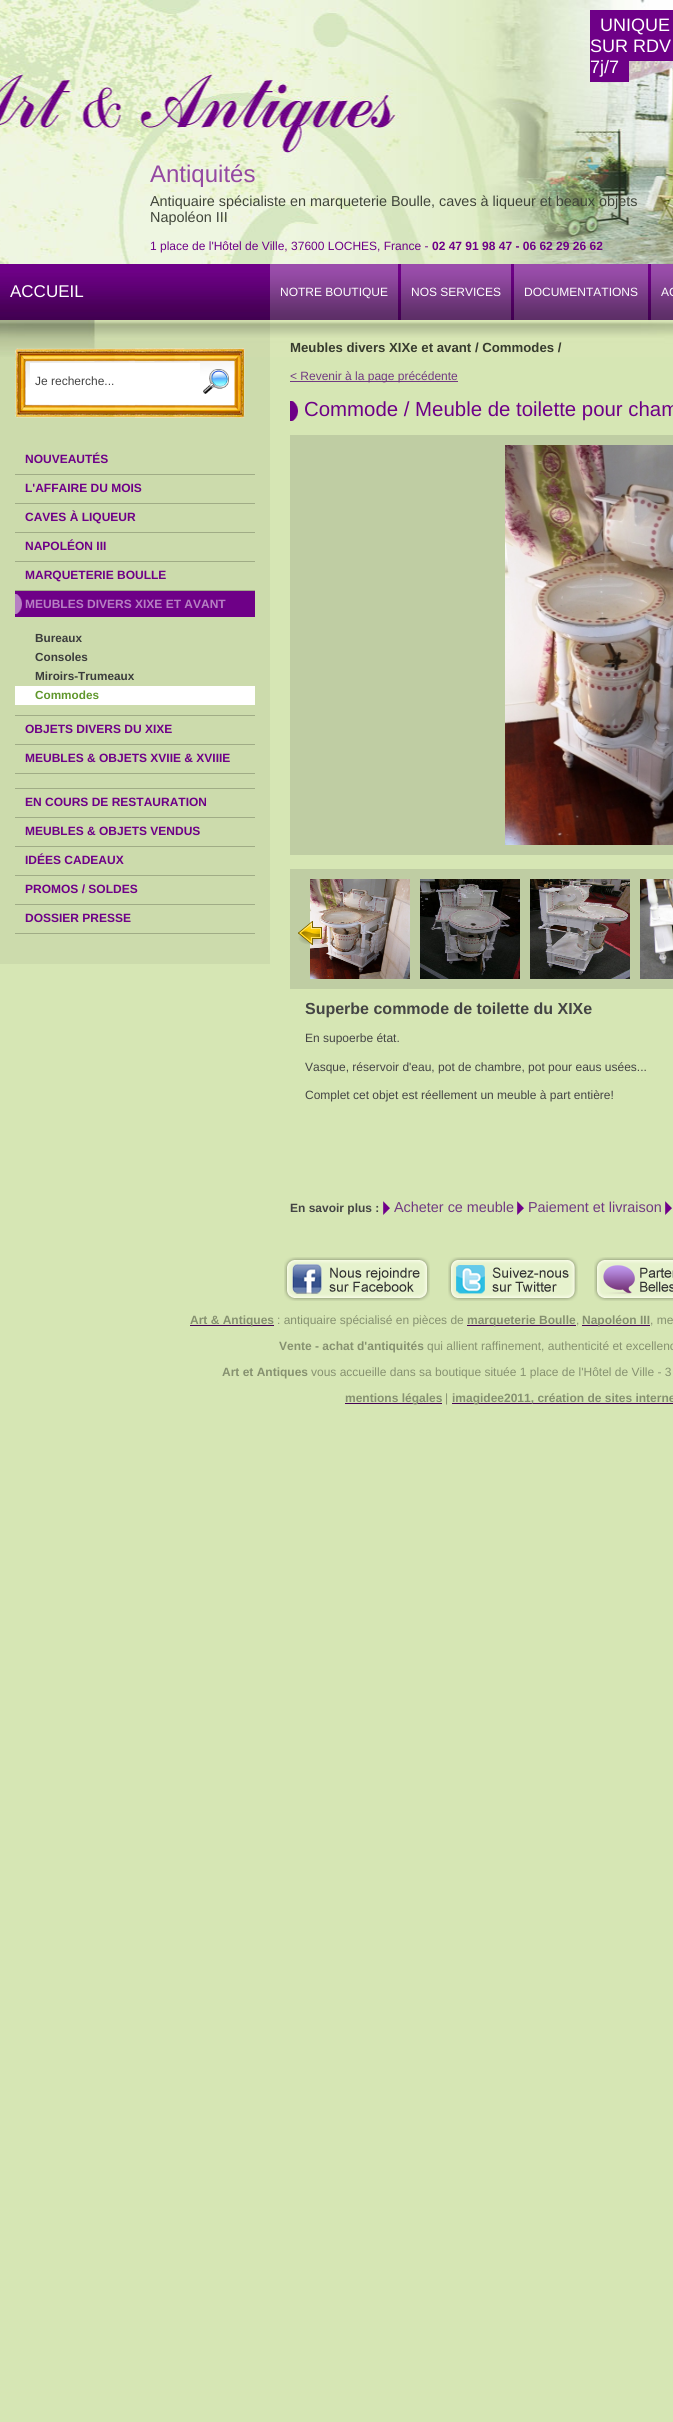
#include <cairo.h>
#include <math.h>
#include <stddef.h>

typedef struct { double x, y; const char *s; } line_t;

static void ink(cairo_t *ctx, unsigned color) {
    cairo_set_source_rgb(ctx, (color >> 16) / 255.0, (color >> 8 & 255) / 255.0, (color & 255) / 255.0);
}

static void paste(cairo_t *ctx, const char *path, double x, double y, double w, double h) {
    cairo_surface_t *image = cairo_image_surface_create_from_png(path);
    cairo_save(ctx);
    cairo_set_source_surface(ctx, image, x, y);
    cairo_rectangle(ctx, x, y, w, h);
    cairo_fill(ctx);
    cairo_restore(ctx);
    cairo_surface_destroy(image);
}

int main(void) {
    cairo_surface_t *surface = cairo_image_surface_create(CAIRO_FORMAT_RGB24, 673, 2422);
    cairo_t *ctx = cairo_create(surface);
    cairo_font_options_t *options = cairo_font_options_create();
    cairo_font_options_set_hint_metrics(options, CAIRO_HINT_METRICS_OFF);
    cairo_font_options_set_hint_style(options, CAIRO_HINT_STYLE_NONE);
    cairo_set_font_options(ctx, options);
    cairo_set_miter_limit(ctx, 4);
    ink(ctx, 0xD6E6B4);
    cairo_paint(ctx);
    paste(ctx, "media/1.png", 0, 0, 673, 357);
    ink(ctx, 0x6E0087);
    cairo_rectangle(ctx, 590, 10, 83, 51);
    cairo_fill(ctx);
    cairo_select_font_face(ctx, "Liberation Sans", CAIRO_FONT_SLANT_NORMAL, CAIRO_FONT_WEIGHT_NORMAL);
    cairo_set_font_size(ctx, 18);
    ink(ctx, 0xFFFFFF);
    cairo_move_to(ctx, 600, 31);
    cairo_show_text(ctx, "UNIQUE");
    cairo_move_to(ctx, 590, 52);
    cairo_show_text(ctx, "SUR RDV");
    ink(ctx, 0x6E0087);
    cairo_rectangle(ctx, 590, 61, 39, 21);
    cairo_fill(ctx);
    ink(ctx, 0xFFFFFF);
    cairo_move_to(ctx, 590, 73);
    cairo_show_text(ctx, "7j/7");
    cairo_set_font_size(ctx, 24);
    ink(ctx, 0x9449A2);
    cairo_move_to(ctx, 150, 182);
    cairo_show_text(ctx, "Antiquités");
    cairo_set_font_size(ctx, 14.4);
    ink(ctx, 0x40453A);
    cairo_move_to(ctx, 150, 206);
    cairo_show_text(ctx, "Antiquaire spécialiste en marqueterie Boulle, caves à liqueur et beaux objets");
    cairo_move_to(ctx, 150, 222);
    cairo_show_text(ctx, "Napoléon III");
    cairo_set_font_size(ctx, 12);
    ink(ctx, 0x6E0087);
    cairo_move_to(ctx, 150, 250);
    cairo_show_text(ctx, "1 place de l'Hôtel de Ville, 37600 LOCHES, France -");
    cairo_select_font_face(ctx, "Liberation Sans", CAIRO_FONT_SLANT_NORMAL, CAIRO_FONT_WEIGHT_BOLD);
    cairo_move_to(ctx, 432, 250);
    cairo_show_text(ctx, "02 47 91 98 47 - 06 62 29 26 62");
    cairo_select_font_face(ctx, "Liberation Sans", CAIRO_FONT_SLANT_NORMAL, CAIRO_FONT_WEIGHT_NORMAL);
    cairo_set_font_size(ctx, 17);
    ink(ctx, 0xFFFFFF);
    cairo_move_to(ctx, 10, 297);
    cairo_show_text(ctx, "ACCUEIL");
    paste(ctx, "media/2.png", 270, 264, 128, 56);
    cairo_set_font_size(ctx, 12);
    cairo_move_to(ctx, 280, 296);
    cairo_show_text(ctx, "NOTRE BOUTIQUE");
    paste(ctx, "media/3.png", 401, 264, 110, 56);
    cairo_move_to(ctx, 411, 296);
    cairo_show_text(ctx, "NOS SERVICES");
    paste(ctx, "media/4.png", 514, 264, 134, 56);
    cairo_move_to(ctx, 524, 296);
    cairo_show_text(ctx, "DOCUMENTATIONS");
    paste(ctx, "media/5.png", 651, 264, 22, 56);
    cairo_move_to(ctx, 661, 296);
    cairo_show_text(ctx, "AC");
    cairo_set_source_rgba(ctx, 0, 0, 0, 0.05);
    cairo_rectangle(ctx, 0, 320, 270, 644);
    cairo_fill(ctx);
    paste(ctx, "media/6.png", 15, 348, 230, 70);
    ink(ctx, 0xFFFFFF);
    cairo_rectangle(ctx, 30, 363, 170, 20);
    cairo_fill(ctx);
    ink(ctx, 0x444444);
    cairo_move_to(ctx, 35, 385);
    cairo_show_text(ctx, "Je recherche...");
    paste(ctx, "media/7.png", 203, 369, 26, 25);
    ink(ctx, 0xA0AC86);
    cairo_rectangle(ctx, 15, 474, 240, 1);
    cairo_fill(ctx);
    cairo_select_font_face(ctx, "Liberation Sans", CAIRO_FONT_SLANT_NORMAL, CAIRO_FONT_WEIGHT_BOLD);
    ink(ctx, 0x6E0087);
    cairo_move_to(ctx, 25, 463);
    cairo_show_text(ctx, "NOUVEAUTÉS");
    ink(ctx, 0xA0AC86);
    cairo_rectangle(ctx, 15, 503, 240, 1);
    cairo_fill(ctx);
    ink(ctx, 0x6E0087);
    cairo_move_to(ctx, 25, 492);
    cairo_show_text(ctx, "L'AFFAIRE DU MOIS");
    ink(ctx, 0xA0AC86);
    cairo_rectangle(ctx, 15, 532, 240, 1);
    cairo_fill(ctx);
    ink(ctx, 0x6E0087);
    cairo_move_to(ctx, 25, 521);
    cairo_show_text(ctx, "CAVES À LIQUEUR");
    ink(ctx, 0xA0AC86);
    cairo_rectangle(ctx, 15, 561, 240, 1);
    cairo_fill(ctx);
    ink(ctx, 0x6E0087);
    cairo_move_to(ctx, 25, 550);
    cairo_show_text(ctx, "NAPOLÉON III");
    ink(ctx, 0xA0AC86);
    cairo_rectangle(ctx, 15, 590, 240, 1);
    cairo_fill(ctx);
    ink(ctx, 0x6E0087);
    cairo_move_to(ctx, 25, 579);
    cairo_show_text(ctx, "MARQUETERIE BOULLE");
    ink(ctx, 0xA0AC86);
    cairo_rectangle(ctx, 15, 715, 240, 1);
    cairo_fill(ctx);
    paste(ctx, "media/8.png", 15, 591, 240, 26);
    ink(ctx, 0xB67FC3);
    cairo_move_to(ctx, 25, 608);
    cairo_show_text(ctx, "MEUBLES DIVERS XIXE ET AVANT");
    cairo_set_font_size(ctx, 11.75);
    ink(ctx, 0x3B3C3C);
    {
        static const line_t items[] = {
            {35, 642, "Bureaux"},
            {35, 661, "Consoles"},
            {35, 680, "Miroirs-Trumeaux"},
        };
        for (size_t i = 0; i < sizeof items / sizeof *items; i++) {
            cairo_move_to(ctx, items[i].x, items[i].y);
            cairo_show_text(ctx, items[i].s);
        }
    }
    ink(ctx, 0xFFFFFF);
    cairo_rectangle(ctx, 15, 686, 240, 19);
    cairo_fill(ctx);
    ink(ctx, 0x60972C);
    cairo_move_to(ctx, 35, 699);
    cairo_show_text(ctx, "Commodes");
    ink(ctx, 0xA0AC86);
    cairo_rectangle(ctx, 15, 744, 240, 1);
    cairo_fill(ctx);
    cairo_set_font_size(ctx, 12);
    ink(ctx, 0x6E0087);
    cairo_move_to(ctx, 25, 733);
    cairo_show_text(ctx, "OBJETS DIVERS DU XIXE");
    ink(ctx, 0xA0AC86);
    cairo_rectangle(ctx, 15, 773, 240, 1);
    cairo_fill(ctx);
    ink(ctx, 0x6E0087);
    cairo_move_to(ctx, 25, 762);
    cairo_show_text(ctx, "MEUBLES & OBJETS XVIIE & XVIIIE");
    ink(ctx, 0xA0AC86);
    cairo_rectangle(ctx, 15, 788, 240, 1);
    cairo_fill(ctx);
    cairo_rectangle(ctx, 15, 817, 240, 1);
    cairo_fill(ctx);
    ink(ctx, 0x6E0087);
    cairo_move_to(ctx, 25, 806);
    cairo_show_text(ctx, "EN COURS DE RESTAURATION");
    ink(ctx, 0xA0AC86);
    cairo_rectangle(ctx, 15, 846, 240, 1);
    cairo_fill(ctx);
    ink(ctx, 0x6E0087);
    cairo_move_to(ctx, 25, 835);
    cairo_show_text(ctx, "MEUBLES & OBJETS VENDUS");
    ink(ctx, 0xA0AC86);
    cairo_rectangle(ctx, 15, 875, 240, 1);
    cairo_fill(ctx);
    ink(ctx, 0x6E0087);
    cairo_move_to(ctx, 25, 864);
    cairo_show_text(ctx, "IDÉES CADEAUX");
    ink(ctx, 0xA0AC86);
    cairo_rectangle(ctx, 15, 904, 240, 1);
    cairo_fill(ctx);
    ink(ctx, 0x6E0087);
    cairo_move_to(ctx, 25, 893);
    cairo_show_text(ctx, "PROMOS / SOLDES");
    ink(ctx, 0xA0AC86);
    cairo_rectangle(ctx, 15, 933, 240, 1);
    cairo_fill(ctx);
    ink(ctx, 0x6E0087);
    cairo_move_to(ctx, 25, 922);
    cairo_show_text(ctx, "DOSSIER PRESSE");
    cairo_set_font_size(ctx, 13.2);
    ink(ctx, 0x373B2E);
    cairo_move_to(ctx, 290, 352);
    cairo_show_text(ctx, "Meubles divers XIXe et avant / Commodes /");
    ink(ctx, 0x713A82);
    cairo_rectangle(ctx, 290, 381, 168, 1);
    cairo_fill(ctx);
    cairo_select_font_face(ctx, "Liberation Sans", CAIRO_FONT_SLANT_NORMAL, CAIRO_FONT_WEIGHT_NORMAL);
    cairo_set_font_size(ctx, 12);
    cairo_move_to(ctx, 290, 380);
    cairo_show_text(ctx, "< Revenir à la page précédente");
    paste(ctx, "media/9.png", 290, 401, 8, 20);
    cairo_set_font_size(ctx, 20.4);
    ink(ctx, 0x6E0087);
    cairo_move_to(ctx, 304, 416);
    cairo_show_text(ctx, "Commode / Meuble de toilette pour cham");
    ink(ctx, 0xBFCDA3);
    cairo_rectangle(ctx, 290, 435, 383, 420);
    cairo_fill(ctx);
    paste(ctx, "media/10.png", 505, 445, 168, 400);
    cairo_rectangle(ctx, 290, 869, 383, 120);
    cairo_fill(ctx);
    paste(ctx, "media/11.png", 310, 879, 100, 100);
    paste(ctx, "media/12.png", 420, 879, 100, 100);
    paste(ctx, "media/13.png", 530, 879, 100, 100);
    paste(ctx, "media/14.png", 640, 879, 33, 100);
    paste(ctx, "media/15.png", 298, 921, 25, 24);
    cairo_select_font_face(ctx, "Liberation Sans", CAIRO_FONT_SLANT_NORMAL, CAIRO_FONT_WEIGHT_BOLD);
    cairo_set_font_size(ctx, 16);
    ink(ctx, 0x444444);
    cairo_move_to(ctx, 305, 1014);
    cairo_show_text(ctx, "Superbe commode de toilette du XIXe");
    cairo_select_font_face(ctx, "Liberation Sans", CAIRO_FONT_SLANT_NORMAL, CAIRO_FONT_WEIGHT_NORMAL);
    cairo_set_font_size(ctx, 12);
    {
        static const line_t items[] = {
            {305, 1042, "En supoerbe état."},
            {305, 1071, "Vasque, réservoir d'eau, pot de chambre, pot pour eaus usées..."},
            {305, 1099, "Complet cet objet est réellement un meuble à part entière!"},
        };
        for (size_t i = 0; i < sizeof items / sizeof *items; i++) {
            cairo_move_to(ctx, items[i].x, items[i].y);
            cairo_show_text(ctx, items[i].s);
        }
    }
    cairo_select_font_face(ctx, "Liberation Sans", CAIRO_FONT_SLANT_NORMAL, CAIRO_FONT_WEIGHT_BOLD);
    cairo_move_to(ctx, 290, 1212);
    cairo_show_text(ctx, "En savoir plus :");
    paste(ctx, "media/16.png", 383, 1201, 7, 14);
    cairo_select_font_face(ctx, "Liberation Sans", CAIRO_FONT_SLANT_NORMAL, CAIRO_FONT_WEIGHT_NORMAL);
    cairo_set_font_size(ctx, 14.4);
    ink(ctx, 0x713A82);
    cairo_move_to(ctx, 394, 1212);
    cairo_show_text(ctx, "Acheter ce meuble");
    paste(ctx, "media/16.png", 517, 1201, 7, 14);
    cairo_move_to(ctx, 528, 1212);
    cairo_show_text(ctx, "Paiement et livraison");
    paste(ctx, "media/16.png", 665, 1201, 7, 14);
    paste(ctx, "media/17.png", 284, 1257, 146, 44);
    paste(ctx, "media/18.png", 448, 1257, 130, 44);
    paste(ctx, "media/19.png", 594, 1257, 79, 44);
    ink(ctx, 0x450055);
    cairo_rectangle(ctx, 190, 1325, 84, 1);
    cairo_fill(ctx);
    cairo_select_font_face(ctx, "Liberation Sans", CAIRO_FONT_SLANT_NORMAL, CAIRO_FONT_WEIGHT_BOLD);
    cairo_set_font_size(ctx, 12);
    ink(ctx, 0x869170);
    cairo_move_to(ctx, 190, 1324);
    cairo_show_text(ctx, "Art & Antiques");
    cairo_select_font_face(ctx, "Liberation Sans", CAIRO_FONT_SLANT_NORMAL, CAIRO_FONT_WEIGHT_NORMAL);
    cairo_move_to(ctx, 277, 1324);
    cairo_show_text(ctx, ": antiquaire spécialisé en pièces de");
    ink(ctx, 0x450055);
    cairo_rectangle(ctx, 467, 1325, 109, 1);
    cairo_fill(ctx);
    cairo_select_font_face(ctx, "Liberation Sans", CAIRO_FONT_SLANT_NORMAL, CAIRO_FONT_WEIGHT_BOLD);
    ink(ctx, 0x869170);
    cairo_move_to(ctx, 467, 1324);
    cairo_show_text(ctx, "marqueterie Boulle");
    cairo_select_font_face(ctx, "Liberation Sans", CAIRO_FONT_SLANT_NORMAL, CAIRO_FONT_WEIGHT_NORMAL);
    cairo_move_to(ctx, 576, 1324);
    cairo_show_text(ctx, ",");
    ink(ctx, 0x450055);
    cairo_rectangle(ctx, 582, 1325, 68, 1);
    cairo_fill(ctx);
    cairo_select_font_face(ctx, "Liberation Sans", CAIRO_FONT_SLANT_NORMAL, CAIRO_FONT_WEIGHT_BOLD);
    ink(ctx, 0x869170);
    cairo_move_to(ctx, 582, 1324);
    cairo_show_text(ctx, "Napoléon III");
    cairo_select_font_face(ctx, "Liberation Sans", CAIRO_FONT_SLANT_NORMAL, CAIRO_FONT_WEIGHT_NORMAL);
    cairo_move_to(ctx, 650, 1324);
    cairo_show_text(ctx, ", me");
    cairo_select_font_face(ctx, "Liberation Sans", CAIRO_FONT_SLANT_NORMAL, CAIRO_FONT_WEIGHT_BOLD);
    cairo_move_to(ctx, 279, 1350);
    cairo_show_text(ctx, "Vente - achat d'antiquités");
    cairo_select_font_face(ctx, "Liberation Sans", CAIRO_FONT_SLANT_NORMAL, CAIRO_FONT_WEIGHT_NORMAL);
    cairo_move_to(ctx, 427, 1350);
    cairo_show_text(ctx, "qui allient raffinement, authenticité et excellenc");
    cairo_select_font_face(ctx, "Liberation Sans", CAIRO_FONT_SLANT_NORMAL, CAIRO_FONT_WEIGHT_BOLD);
    cairo_move_to(ctx, 222, 1376);
    cairo_show_text(ctx, "Art et Antiques");
    cairo_select_font_face(ctx, "Liberation Sans", CAIRO_FONT_SLANT_NORMAL, CAIRO_FONT_WEIGHT_NORMAL);
    cairo_move_to(ctx, 311, 1376);
    cairo_show_text(ctx, "vous accueille dans sa boutique située 1 place de l'Hôtel de Ville - 3");
    ink(ctx, 0x450055);
    cairo_rectangle(ctx, 345, 1403, 97, 1);
    cairo_fill(ctx);
    cairo_select_font_face(ctx, "Liberation Sans", CAIRO_FONT_SLANT_NORMAL, CAIRO_FONT_WEIGHT_BOLD);
    ink(ctx, 0x869170);
    cairo_move_to(ctx, 345, 1402);
    cairo_show_text(ctx, "mentions légales");
    cairo_select_font_face(ctx, "Liberation Sans", CAIRO_FONT_SLANT_NORMAL, CAIRO_FONT_WEIGHT_NORMAL);
    cairo_move_to(ctx, 445, 1402);
    cairo_show_text(ctx, "|");
    ink(ctx, 0x450055);
    cairo_rectangle(ctx, 452, 1403, 221, 1);
    cairo_fill(ctx);
    cairo_select_font_face(ctx, "Liberation Sans", CAIRO_FONT_SLANT_NORMAL, CAIRO_FONT_WEIGHT_BOLD);
    ink(ctx, 0x869170);
    cairo_move_to(ctx, 452, 1402);
    cairo_show_text(ctx, "imagidee2011, création de sites interne");
    cairo_surface_write_to_png(surface, "image.png");
    cairo_font_options_destroy(options);
    cairo_destroy(ctx);
    cairo_surface_destroy(surface);
    return 0;
}
